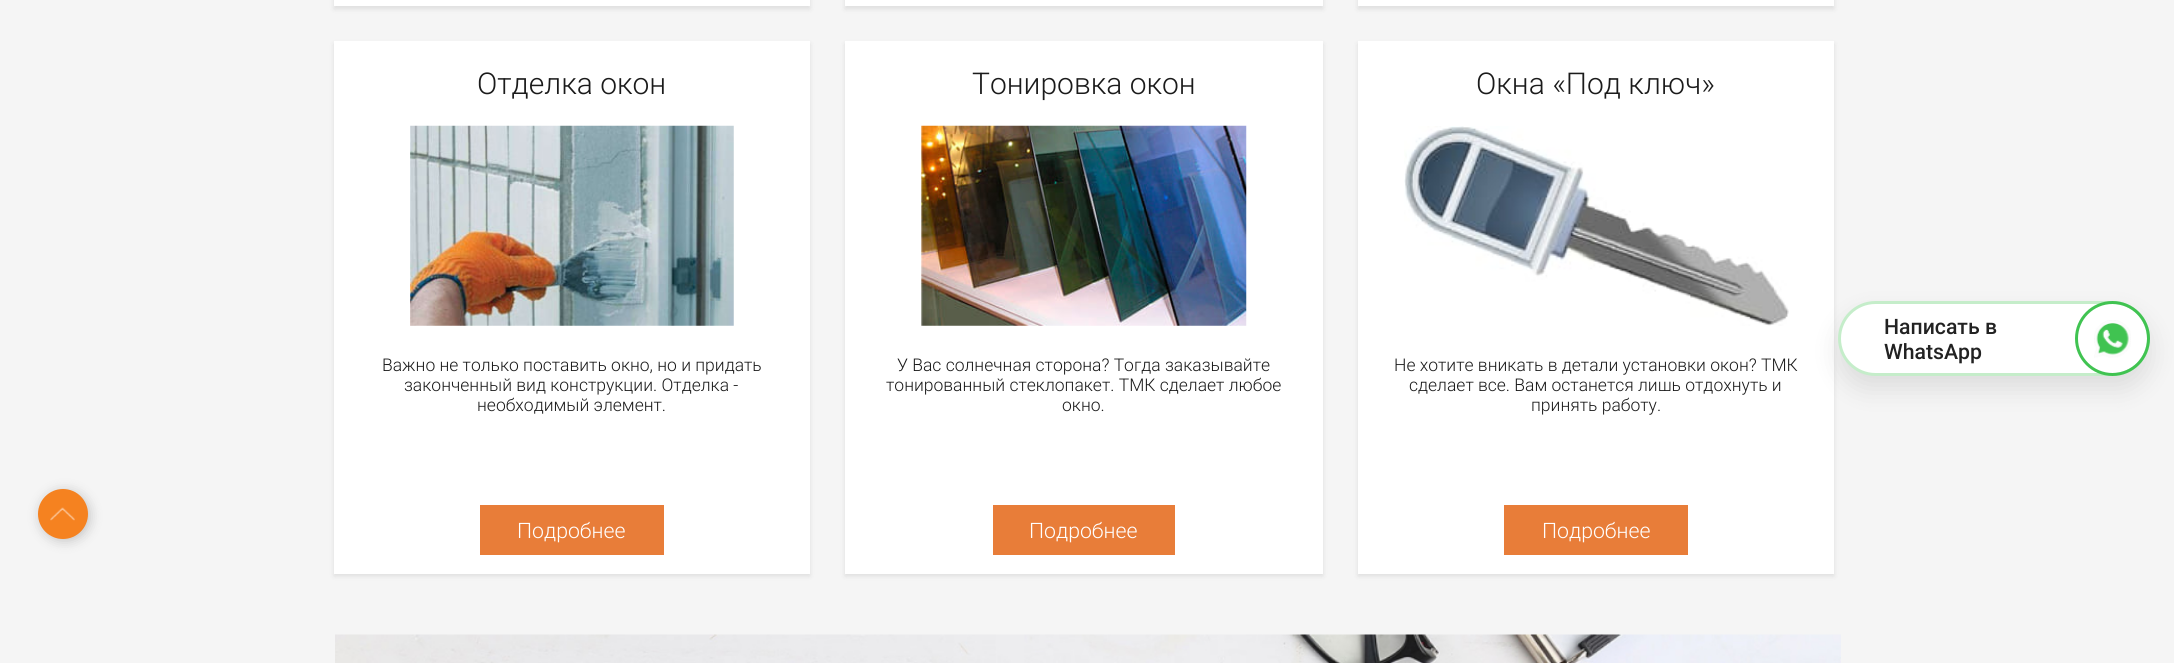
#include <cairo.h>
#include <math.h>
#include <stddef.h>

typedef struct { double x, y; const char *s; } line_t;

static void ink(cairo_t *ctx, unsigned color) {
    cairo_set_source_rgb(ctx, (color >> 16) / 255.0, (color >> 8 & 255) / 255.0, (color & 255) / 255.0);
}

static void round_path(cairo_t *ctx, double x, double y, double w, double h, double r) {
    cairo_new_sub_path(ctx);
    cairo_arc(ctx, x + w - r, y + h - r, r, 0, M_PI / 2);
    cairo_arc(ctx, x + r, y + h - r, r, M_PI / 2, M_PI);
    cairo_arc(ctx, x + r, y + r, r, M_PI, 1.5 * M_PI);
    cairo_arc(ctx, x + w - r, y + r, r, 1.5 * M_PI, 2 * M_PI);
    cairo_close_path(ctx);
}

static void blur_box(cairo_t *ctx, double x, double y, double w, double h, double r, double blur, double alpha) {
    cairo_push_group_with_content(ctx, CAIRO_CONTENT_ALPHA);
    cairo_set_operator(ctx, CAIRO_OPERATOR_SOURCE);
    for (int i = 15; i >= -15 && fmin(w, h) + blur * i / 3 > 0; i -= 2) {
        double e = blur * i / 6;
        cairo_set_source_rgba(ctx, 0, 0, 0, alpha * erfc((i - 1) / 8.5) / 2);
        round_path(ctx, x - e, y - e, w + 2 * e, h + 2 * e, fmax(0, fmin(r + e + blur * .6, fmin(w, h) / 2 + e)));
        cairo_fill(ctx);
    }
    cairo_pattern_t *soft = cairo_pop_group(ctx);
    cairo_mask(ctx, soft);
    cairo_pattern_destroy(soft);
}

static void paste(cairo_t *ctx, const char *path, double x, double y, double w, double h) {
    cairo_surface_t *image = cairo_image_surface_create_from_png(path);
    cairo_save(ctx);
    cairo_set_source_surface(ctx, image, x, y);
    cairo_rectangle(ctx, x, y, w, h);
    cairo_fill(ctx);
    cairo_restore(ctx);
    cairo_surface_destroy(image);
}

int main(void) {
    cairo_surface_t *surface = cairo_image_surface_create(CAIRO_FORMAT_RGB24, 2174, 663);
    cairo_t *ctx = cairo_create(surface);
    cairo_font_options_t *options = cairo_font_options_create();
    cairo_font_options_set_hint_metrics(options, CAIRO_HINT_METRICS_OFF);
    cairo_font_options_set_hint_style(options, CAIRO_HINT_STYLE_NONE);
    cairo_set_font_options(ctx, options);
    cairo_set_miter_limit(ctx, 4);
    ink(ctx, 0xF5F5F5);
    cairo_paint(ctx);
    ink(ctx, 0x000000);
    blur_box(ctx, 334, -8, 476, 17, 0, 2.5, 0.1);
    ink(ctx, 0xFFFFFF);
    cairo_rectangle(ctx, 334, 0, 476, 6);
    cairo_fill(ctx);
    ink(ctx, 0x000000);
    blur_box(ctx, 845, -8, 478, 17, 0, 2.5, 0.1);
    ink(ctx, 0xFFFFFF);
    cairo_rectangle(ctx, 845, 0, 478, 6);
    cairo_fill(ctx);
    ink(ctx, 0x000000);
    blur_box(ctx, 1358, -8, 476, 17, 0, 2.5, 0.1);
    ink(ctx, 0xFFFFFF);
    cairo_rectangle(ctx, 1358, 0, 476, 6);
    cairo_fill(ctx);
    ink(ctx, 0x000000);
    blur_box(ctx, 334, 44, 476, 532, 0, 2.5, 0.1);
    ink(ctx, 0xFFFFFF);
    cairo_rectangle(ctx, 334, 41, 476, 533);
    cairo_fill(ctx);
    cairo_select_font_face(ctx, "Roboto Light", CAIRO_FONT_SLANT_NORMAL, CAIRO_FONT_WEIGHT_NORMAL);
    cairo_set_font_size(ctx, 30);
    ink(ctx, 0x1B1B1B);
    cairo_move_to(ctx, 477, 94);
    cairo_show_text(ctx, "Отделка окон");
    paste(ctx, "media/1.png", 410, 125, 324, 201);
    cairo_set_font_size(ctx, 17.5);
    {
        static const line_t items[] = {
            {382, 371, "Важно не только поставить окно, но и придать"},
            {404, 391, "законченный вид конструкции. Отделка -"},
            {477, 411, "необходимый элемент."},
        };
        for (size_t i = 0; i < sizeof items / sizeof *items; i++) {
            cairo_move_to(ctx, items[i].x, items[i].y);
            cairo_show_text(ctx, items[i].s);
        }
    }
    ink(ctx, 0xE87D39);
    cairo_rectangle(ctx, 480, 505, 184, 50);
    cairo_fill(ctx);
    cairo_set_font_size(ctx, 21.25);
    ink(ctx, 0xFFFFFF);
    cairo_move_to(ctx, 517, 538);
    cairo_show_text(ctx, "Подробнее");
    ink(ctx, 0x000000);
    blur_box(ctx, 845, 44, 478, 532, 0, 2.5, 0.1);
    ink(ctx, 0xFFFFFF);
    cairo_rectangle(ctx, 845, 41, 478, 533);
    cairo_fill(ctx);
    cairo_set_font_size(ctx, 30);
    ink(ctx, 0x1B1B1B);
    cairo_move_to(ctx, 972, 94);
    cairo_show_text(ctx, "Тонировка окон");
    paste(ctx, "media/2.png", 921, 125, 326, 201);
    cairo_set_font_size(ctx, 17.5);
    {
        static const line_t items[] = {
            {897, 371, "У Вас солнечная сторона? Тогда заказывайте"},
            {886, 391, "тонированный стеклопакет. ТМК сделает любое"},
            {1062, 411, "окно."},
        };
        for (size_t i = 0; i < sizeof items / sizeof *items; i++) {
            cairo_move_to(ctx, items[i].x, items[i].y);
            cairo_show_text(ctx, items[i].s);
        }
    }
    ink(ctx, 0xE87D39);
    cairo_rectangle(ctx, 993, 505, 182, 50);
    cairo_fill(ctx);
    cairo_set_font_size(ctx, 21.25);
    ink(ctx, 0xFFFFFF);
    cairo_move_to(ctx, 1029, 538);
    cairo_show_text(ctx, "Подробнее");
    ink(ctx, 0x000000);
    blur_box(ctx, 1358, 44, 476, 532, 0, 2.5, 0.1);
    ink(ctx, 0xFFFFFF);
    cairo_rectangle(ctx, 1358, 41, 476, 533);
    cairo_fill(ctx);
    cairo_set_font_size(ctx, 30);
    ink(ctx, 0x1B1B1B);
    cairo_move_to(ctx, 1476, 94);
    cairo_show_text(ctx, "Окна «Под ключ»");
    paste(ctx, "media/3.png", 1404, 126, 385, 200);
    cairo_set_font_size(ctx, 17.5);
    {
        static const line_t items[] = {
            {1394, 371, "Не хотите вникать в детали установки окон? ТМК"},
            {1409, 391, "сделает все. Вам останется лишь отдохнуть и"},
            {1531, 411, "принять работу."},
        };
        for (size_t i = 0; i < sizeof items / sizeof *items; i++) {
            cairo_move_to(ctx, items[i].x, items[i].y);
            cairo_show_text(ctx, items[i].s);
        }
    }
    ink(ctx, 0xE87D39);
    cairo_rectangle(ctx, 1504, 505, 184, 50);
    cairo_fill(ctx);
    cairo_set_font_size(ctx, 21.25);
    ink(ctx, 0xFFFFFF);
    cairo_move_to(ctx, 1542, 538);
    cairo_show_text(ctx, "Подробнее");
    ink(ctx, 0x000000);
    blur_box(ctx, 1838, 314, 312, 75, 37.5, 12.5, 0.1);
    ink(ctx, 0xFFFFFF);
    round_path(ctx, 1839.5, 302.5, 309, 72, 36);
    cairo_fill_preserve(ctx);
    ink(ctx, 0xC5EDCA);
    cairo_set_line_width(ctx, 3);
    cairo_stroke(ctx);
    cairo_select_font_face(ctx, "Roboto Medium", CAIRO_FONT_SLANT_NORMAL, CAIRO_FONT_WEIGHT_NORMAL);
    ink(ctx, 0x222222);
    cairo_move_to(ctx, 1884, 334);
    cairo_show_text(ctx, "Написать в");
    cairo_move_to(ctx, 1884, 359);
    cairo_show_text(ctx, "WhatsApp");
    cairo_new_path(ctx);
    cairo_arc(ctx, 2112.5, 338.5, 36, 0, 2 * M_PI);
    ink(ctx, 0x40C351);
    cairo_stroke(ctx);
    paste(ctx, "media/4.png", 2094, 320, 37, 38);
    ink(ctx, 0x000000);
    blur_box(ctx, 40, 491, 50, 50, 25, 6, 0.2);
    ink(ctx, 0xF58220);
    cairo_arc(ctx, 63, 514, 25, 0, 2 * M_PI);
    cairo_fill(ctx);
    paste(ctx, "media/5.png", 50, 507, 25, 14);
    paste(ctx, "media/6.png", 335, 634, 1506, 29);
    cairo_surface_write_to_png(surface, "image.png");
    cairo_font_options_destroy(options);
    cairo_destroy(ctx);
    cairo_surface_destroy(surface);
    return 0;
}
